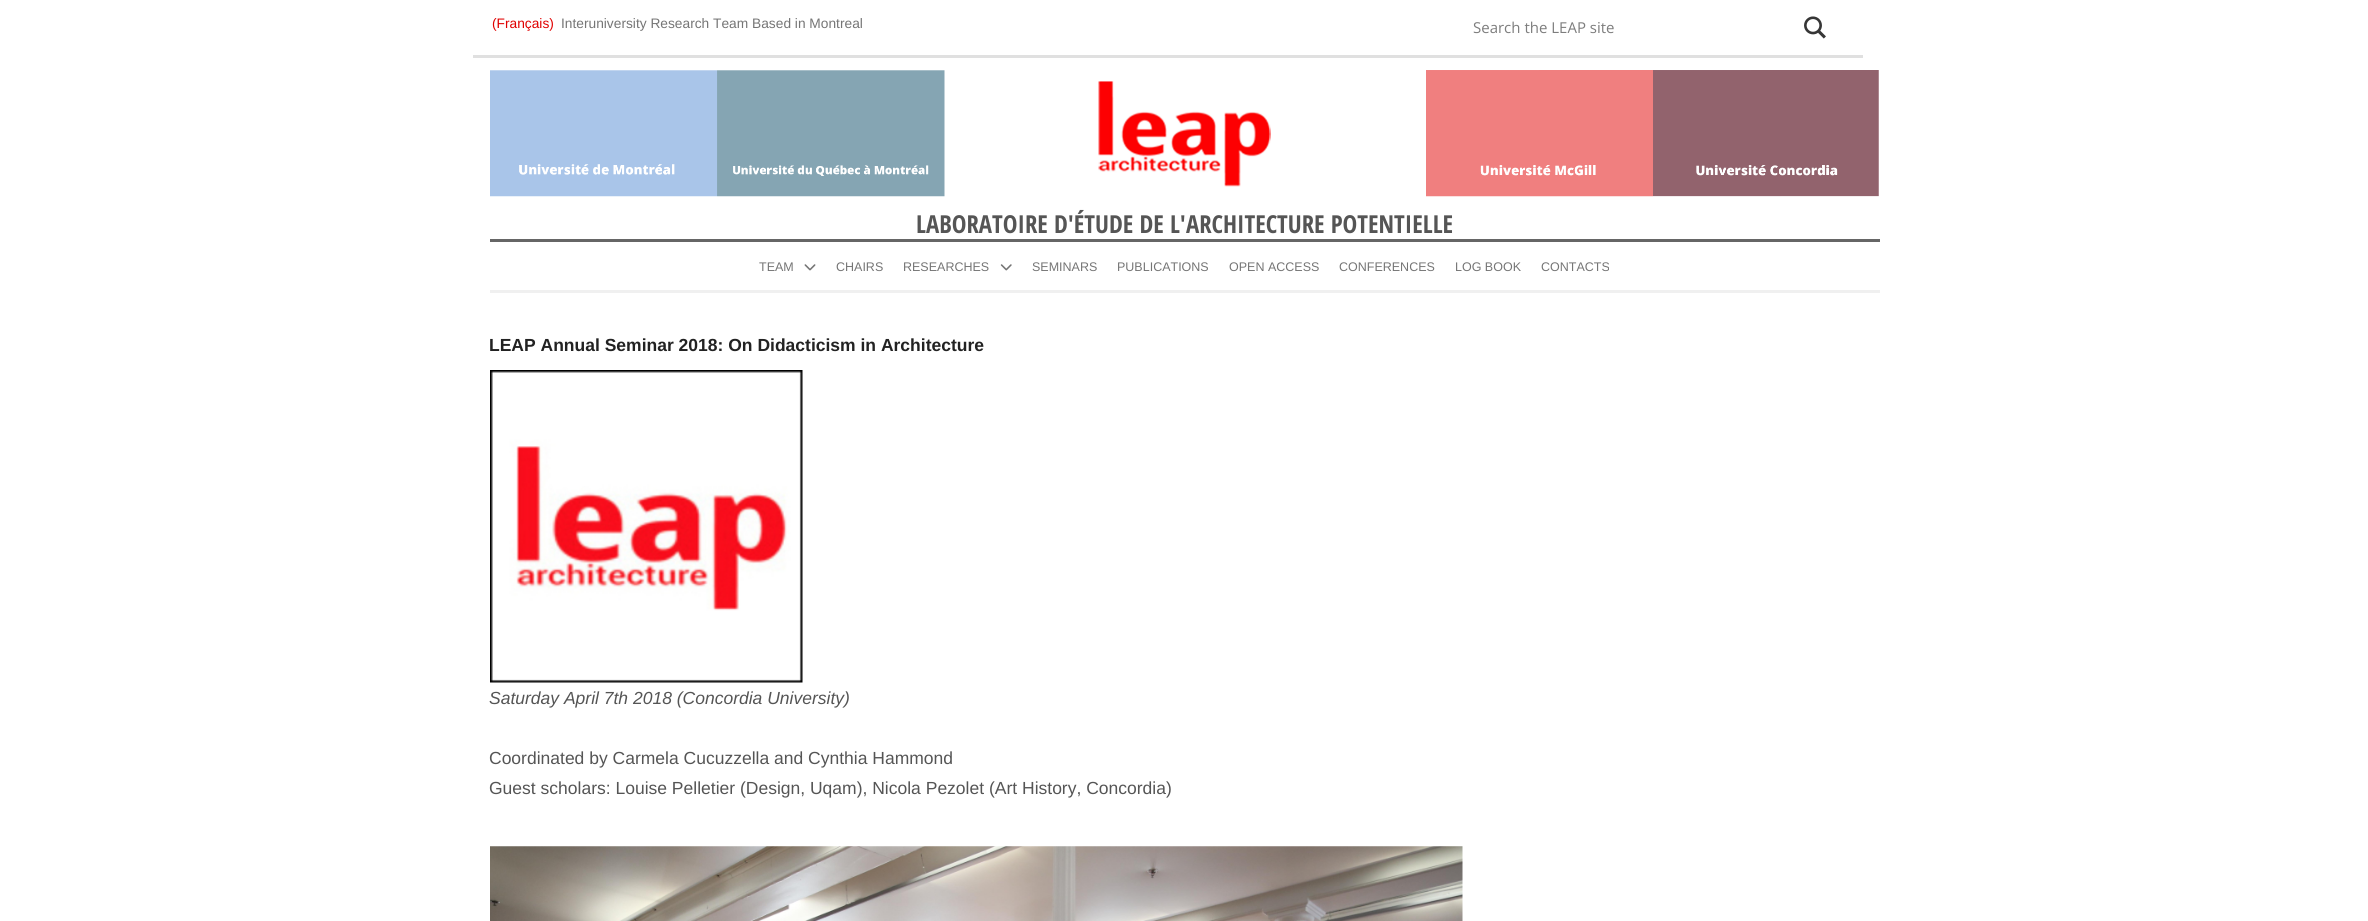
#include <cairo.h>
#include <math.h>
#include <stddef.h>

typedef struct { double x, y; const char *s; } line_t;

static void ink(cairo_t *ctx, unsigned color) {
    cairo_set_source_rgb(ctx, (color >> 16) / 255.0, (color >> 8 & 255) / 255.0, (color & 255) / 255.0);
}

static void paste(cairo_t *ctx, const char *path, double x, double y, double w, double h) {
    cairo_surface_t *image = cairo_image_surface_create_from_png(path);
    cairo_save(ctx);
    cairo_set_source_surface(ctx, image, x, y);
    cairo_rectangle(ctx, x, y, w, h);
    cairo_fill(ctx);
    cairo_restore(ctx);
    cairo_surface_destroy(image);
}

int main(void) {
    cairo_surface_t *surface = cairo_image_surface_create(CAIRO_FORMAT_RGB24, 2368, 921);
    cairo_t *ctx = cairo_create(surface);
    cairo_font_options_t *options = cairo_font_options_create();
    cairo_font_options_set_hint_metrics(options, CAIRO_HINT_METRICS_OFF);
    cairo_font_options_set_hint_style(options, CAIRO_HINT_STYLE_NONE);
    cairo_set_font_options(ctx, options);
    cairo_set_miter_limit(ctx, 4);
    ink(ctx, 0xFFFFFF);
    cairo_paint(ctx);
    ink(ctx, 0xE0E0E0);
    cairo_rectangle(ctx, 473, 55, 1390, 3);
    cairo_fill(ctx);
    cairo_select_font_face(ctx, "Liberation Sans", CAIRO_FONT_SLANT_NORMAL, CAIRO_FONT_WEIGHT_NORMAL);
    cairo_set_font_size(ctx, 13.75);
    ink(ctx, 0xE00000);
    cairo_move_to(ctx, 492, 28);
    cairo_show_text(ctx, "(Français)");
    ink(ctx, 0x757575);
    cairo_move_to(ctx, 561, 28);
    cairo_show_text(ctx, "Interuniversity Research Team Based in Montreal");
    cairo_select_font_face(ctx, "Open Sans", CAIRO_FONT_SLANT_NORMAL, CAIRO_FONT_WEIGHT_NORMAL);
    cairo_set_font_size(ctx, 15);
    ink(ctx, 0x7D7D7D);
    cairo_move_to(ctx, 1473, 33);
    cairo_show_text(ctx, "Search the LEAP site");
    paste(ctx, "media/1.png", 1804, 16, 22, 23);
    paste(ctx, "media/2.png", 490, 70, 1389, 127);
    cairo_select_font_face(ctx, "Open Sans Condensed", CAIRO_FONT_SLANT_NORMAL, CAIRO_FONT_WEIGHT_BOLD);
    cairo_set_font_size(ctx, 24.75);
    ink(ctx, 0x555555);
    cairo_move_to(ctx, 916, 233);
    cairo_show_text(ctx, "LABORATOIRE D'ÉTUDE DE L'ARCHITECTURE POTENTIELLE");
    ink(ctx, 0xF0F0F0);
    cairo_rectangle(ctx, 490, 290, 1390, 3);
    cairo_fill(ctx);
    ink(ctx, 0x666666);
    cairo_rectangle(ctx, 490, 239, 1390, 3);
    cairo_fill(ctx);
    cairo_select_font_face(ctx, "Liberation Sans", CAIRO_FONT_SLANT_NORMAL, CAIRO_FONT_WEIGHT_NORMAL);
    cairo_set_font_size(ctx, 12.5);
    ink(ctx, 0x757575);
    cairo_move_to(ctx, 759, 271);
    cairo_show_text(ctx, "TEAM");
    paste(ctx, "media/3.png", 804, 264, 12, 7);
    cairo_move_to(ctx, 836, 271);
    cairo_show_text(ctx, "CHAIRS");
    cairo_move_to(ctx, 903, 271);
    cairo_show_text(ctx, "RESEARCHES");
    paste(ctx, "media/4.png", 1000, 264, 12, 7);
    {
        static const line_t items[] = {
            {1032, 271, "SEMINARS"},
            {1117, 271, "PUBLICATIONS"},
            {1229, 271, "OPEN ACCESS"},
            {1339, 271, "CONFERENCES"},
            {1455, 271, "LOG BOOK"},
            {1541, 271, "CONTACTS"},
        };
        for (size_t i = 0; i < sizeof items / sizeof *items; i++) {
            cairo_move_to(ctx, items[i].x, items[i].y);
            cairo_show_text(ctx, items[i].s);
        }
    }
    cairo_select_font_face(ctx, "Liberation Sans", CAIRO_FONT_SLANT_NORMAL, CAIRO_FONT_WEIGHT_BOLD);
    cairo_set_font_size(ctx, 17.5);
    ink(ctx, 0x222222);
    cairo_move_to(ctx, 489, 351);
    cairo_show_text(ctx, "LEAP Annual Seminar 2018: On Didacticism in Architecture");
    paste(ctx, "media/5.png", 490, 370, 313, 313);
    cairo_select_font_face(ctx, "Liberation Sans", CAIRO_FONT_SLANT_ITALIC, CAIRO_FONT_WEIGHT_NORMAL);
    ink(ctx, 0x555555);
    cairo_move_to(ctx, 489, 704);
    cairo_show_text(ctx, "Saturday April 7th 2018 (Concordia University)");
    cairo_select_font_face(ctx, "Liberation Sans", CAIRO_FONT_SLANT_NORMAL, CAIRO_FONT_WEIGHT_NORMAL);
    cairo_move_to(ctx, 489, 764);
    cairo_show_text(ctx, "Coordinated by Carmela Cucuzzella and Cynthia Hammond");
    cairo_move_to(ctx, 489, 794);
    cairo_show_text(ctx, "Guest scholars: Louise Pelletier (Design, Uqam), Nicola Pezolet (Art History, Concordia)");
    paste(ctx, "media/6.png", 490, 846, 973, 75);
    cairo_surface_write_to_png(surface, "image.png");
    cairo_font_options_destroy(options);
    cairo_destroy(ctx);
    cairo_surface_destroy(surface);
    return 0;
}
